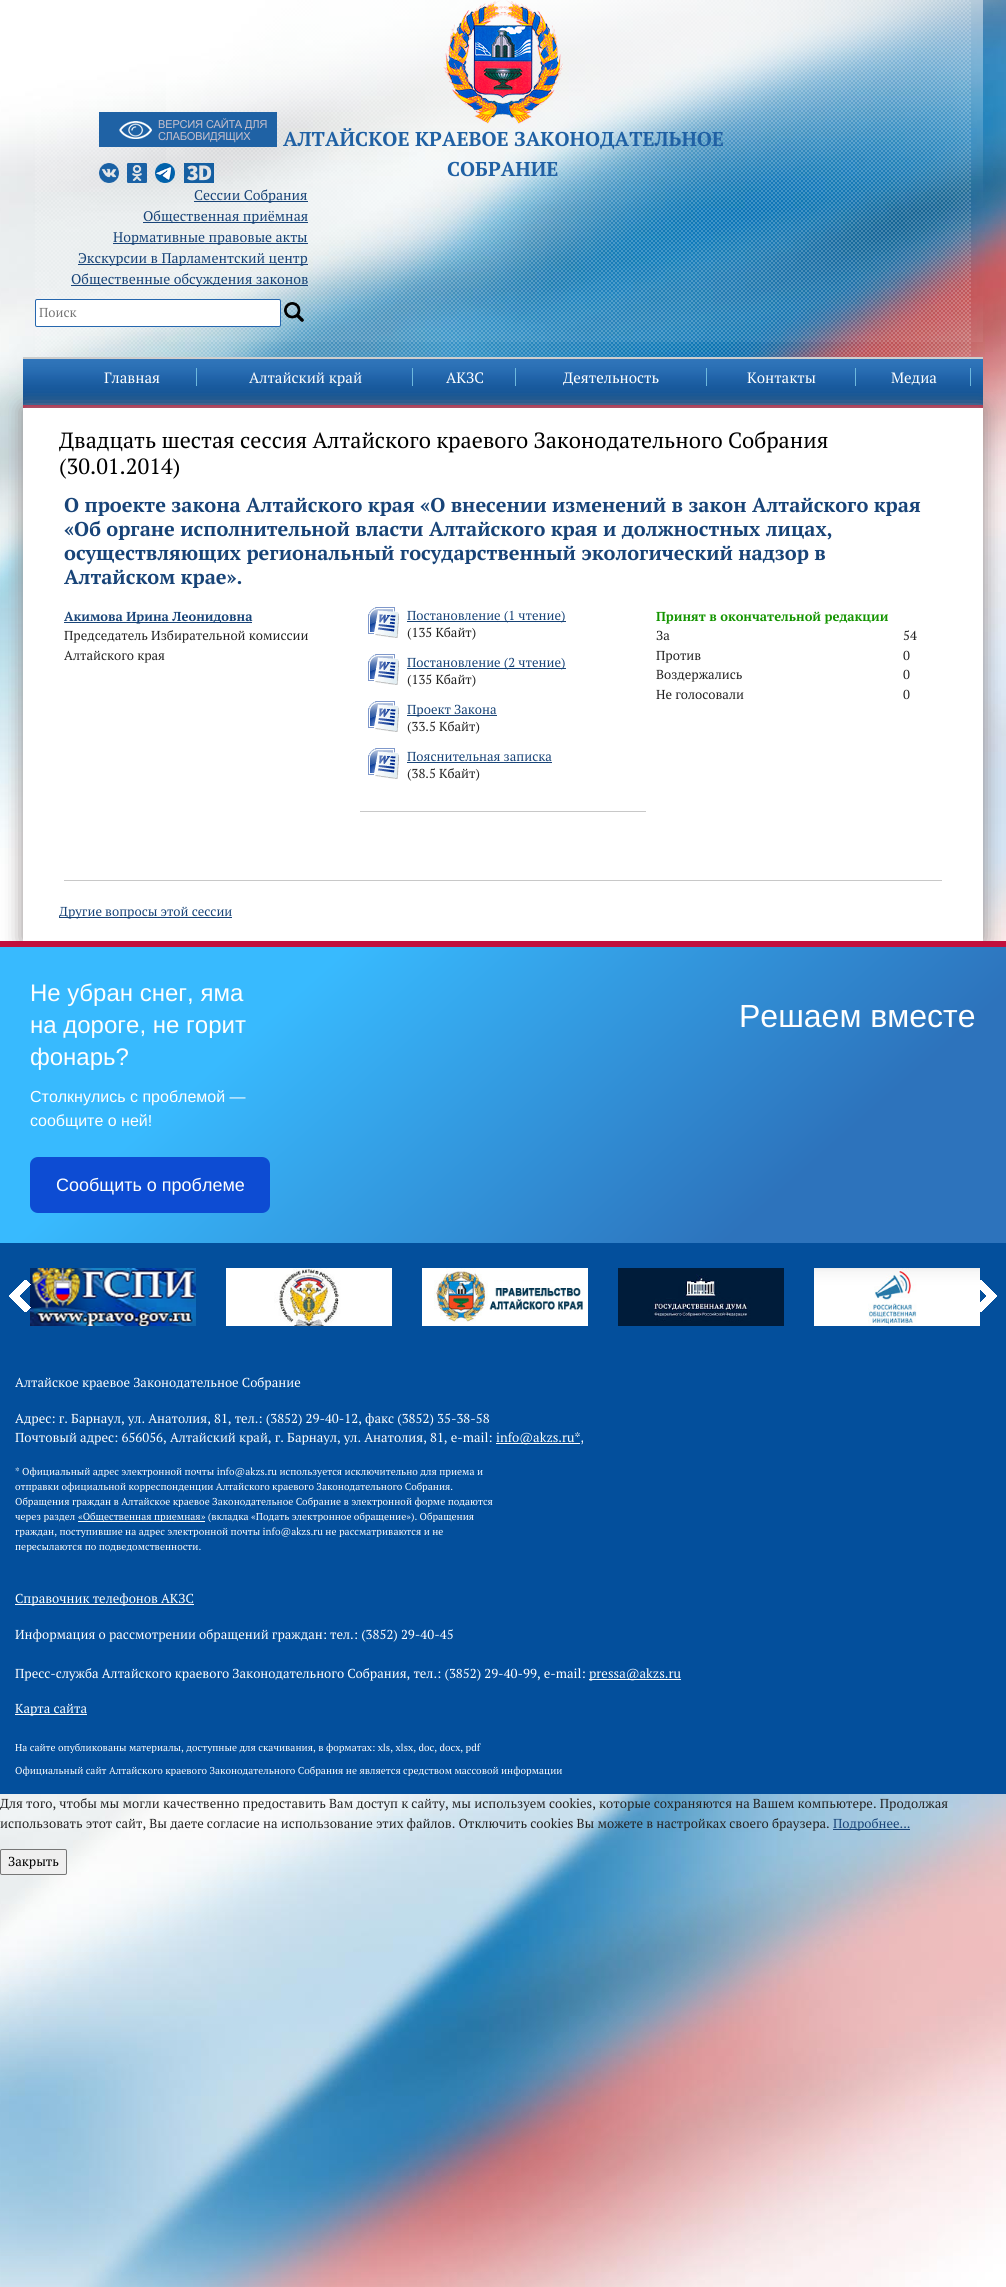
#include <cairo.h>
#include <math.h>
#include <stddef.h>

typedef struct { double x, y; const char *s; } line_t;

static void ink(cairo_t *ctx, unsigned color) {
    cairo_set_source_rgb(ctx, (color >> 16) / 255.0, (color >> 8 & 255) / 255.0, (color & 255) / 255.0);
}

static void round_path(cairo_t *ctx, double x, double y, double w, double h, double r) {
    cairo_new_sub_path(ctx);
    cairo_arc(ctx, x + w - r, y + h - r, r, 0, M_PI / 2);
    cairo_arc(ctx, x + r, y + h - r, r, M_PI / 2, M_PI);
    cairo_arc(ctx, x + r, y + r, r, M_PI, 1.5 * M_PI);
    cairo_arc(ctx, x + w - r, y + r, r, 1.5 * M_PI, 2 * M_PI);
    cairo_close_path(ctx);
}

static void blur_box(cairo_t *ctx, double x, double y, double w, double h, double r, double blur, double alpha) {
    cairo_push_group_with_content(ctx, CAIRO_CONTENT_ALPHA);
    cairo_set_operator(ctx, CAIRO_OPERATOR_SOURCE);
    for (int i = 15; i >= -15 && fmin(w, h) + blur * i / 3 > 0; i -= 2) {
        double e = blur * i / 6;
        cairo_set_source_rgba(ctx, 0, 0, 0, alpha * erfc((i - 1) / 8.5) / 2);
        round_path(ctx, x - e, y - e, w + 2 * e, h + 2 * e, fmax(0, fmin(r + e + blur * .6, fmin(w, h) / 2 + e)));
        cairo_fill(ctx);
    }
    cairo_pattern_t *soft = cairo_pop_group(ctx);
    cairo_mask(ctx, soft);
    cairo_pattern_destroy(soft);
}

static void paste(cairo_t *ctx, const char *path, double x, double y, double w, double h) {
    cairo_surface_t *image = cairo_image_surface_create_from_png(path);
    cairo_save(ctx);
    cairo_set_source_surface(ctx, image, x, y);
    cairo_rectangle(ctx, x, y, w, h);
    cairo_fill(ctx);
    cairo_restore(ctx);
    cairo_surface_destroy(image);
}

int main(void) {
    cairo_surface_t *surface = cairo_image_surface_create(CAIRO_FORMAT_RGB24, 1006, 2287);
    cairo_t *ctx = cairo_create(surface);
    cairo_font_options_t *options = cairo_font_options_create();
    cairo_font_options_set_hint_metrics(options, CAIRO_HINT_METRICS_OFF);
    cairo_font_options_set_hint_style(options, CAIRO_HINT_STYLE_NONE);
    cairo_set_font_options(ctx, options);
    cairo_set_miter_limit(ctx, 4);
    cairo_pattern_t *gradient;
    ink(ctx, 0xFFFFFF);
    cairo_paint(ctx);
    paste(ctx, "media/1.png", 0, 0, 1006, 2287);
    paste(ctx, "media/2.png", 35, 0, 936, 357);
    paste(ctx, "media/3.png", 166, 0, 817, 342);
    ink(ctx, 0x1F62A5);
    cairo_rectangle(ctx, 99, 112, 178, 35);
    cairo_fill(ctx);
    paste(ctx, "media/4.png", 119, 118, 148, 25);
    paste(ctx, "media/5.png", 99, 163, 20, 20);
    paste(ctx, "media/6.png", 127, 163, 20, 20);
    paste(ctx, "media/7.png", 155, 163, 20, 20);
    paste(ctx, "media/8.png", 184, 163, 30, 20);
    paste(ctx, "media/9.png", 443, 0, 120, 124);
    cairo_select_font_face(ctx, "PT Serif", CAIRO_FONT_SLANT_NORMAL, CAIRO_FONT_WEIGHT_BOLD);
    cairo_set_font_size(ctx, 20);
    ink(ctx, 0x2061A4);
    cairo_move_to(ctx, 283, 146);
    cairo_show_text(ctx, "АЛТАЙСКОЕ КРАЕВОЕ ЗАКОНОДАТЕЛЬНОЕ");
    cairo_move_to(ctx, 447, 176);
    cairo_show_text(ctx, "CОБРАНИЕ");
    ink(ctx, 0x184478);
    cairo_rectangle(ctx, 194, 201, 114, 1);
    cairo_fill(ctx);
    cairo_select_font_face(ctx, "PT Serif", CAIRO_FONT_SLANT_NORMAL, CAIRO_FONT_WEIGHT_NORMAL);
    cairo_set_font_size(ctx, 14);
    cairo_move_to(ctx, 194, 200);
    cairo_show_text(ctx, "Сессии Собрания");
    cairo_rectangle(ctx, 143, 222, 165, 1);
    cairo_fill(ctx);
    cairo_move_to(ctx, 143, 221);
    cairo_show_text(ctx, "Общественная приёмная");
    cairo_rectangle(ctx, 113, 243, 195, 1);
    cairo_fill(ctx);
    cairo_move_to(ctx, 113, 242);
    cairo_show_text(ctx, "Нормативные правовые акты");
    cairo_rectangle(ctx, 78, 264, 230, 1);
    cairo_fill(ctx);
    cairo_move_to(ctx, 78, 263);
    cairo_show_text(ctx, "Экскурсии в Парламентский центр");
    cairo_rectangle(ctx, 71, 285, 237, 1);
    cairo_fill(ctx);
    cairo_move_to(ctx, 71, 284);
    cairo_show_text(ctx, "Общественные обсуждения законов");
    ink(ctx, 0xFFFFFF);
    round_path(ctx, 35.5, 299.5, 245, 27, 1.5);
    cairo_fill_preserve(ctx);
    ink(ctx, 0x2667AE);
    cairo_set_line_width(ctx, 1);
    cairo_stroke(ctx);
    cairo_set_font_size(ctx, 13);
    ink(ctx, 0x757575);
    cairo_move_to(ctx, 39, 317);
    cairo_show_text(ctx, "Поиск");
    paste(ctx, "media/10.png", 284, 302, 20, 20);
    paste(ctx, "media/11.png", 23, 359, 960, 49);
    ink(ctx, 0xCDCDCD);
    cairo_rectangle(ctx, 23, 357, 960, 2);
    cairo_fill(ctx);
    ink(ctx, 0x948D8D);
    blur_box(ctx, 23, 408, 960, 533, 0, 10, 1);
    ink(ctx, 0x6DB8DD);
    cairo_rectangle(ctx, 196, 368, 1, 18);
    cairo_fill(ctx);
    cairo_set_font_size(ctx, 15);
    ink(ctx, 0xFFFFFF);
    cairo_move_to(ctx, 104, 383);
    cairo_show_text(ctx, "Главная");
    ink(ctx, 0x6DB8DD);
    cairo_rectangle(ctx, 412, 368, 1, 18);
    cairo_fill(ctx);
    ink(ctx, 0xFFFFFF);
    cairo_move_to(ctx, 249, 383);
    cairo_show_text(ctx, "Алтайский край");
    ink(ctx, 0x6DB8DD);
    cairo_rectangle(ctx, 515, 368, 1, 18);
    cairo_fill(ctx);
    ink(ctx, 0xFFFFFF);
    cairo_move_to(ctx, 446, 383);
    cairo_show_text(ctx, "АКЗС");
    ink(ctx, 0x6DB8DD);
    cairo_rectangle(ctx, 706, 368, 1, 18);
    cairo_fill(ctx);
    ink(ctx, 0xFFFFFF);
    cairo_move_to(ctx, 563, 383);
    cairo_show_text(ctx, "Деятельность");
    ink(ctx, 0x6DB8DD);
    cairo_rectangle(ctx, 855, 368, 1, 18);
    cairo_fill(ctx);
    ink(ctx, 0xFFFFFF);
    cairo_move_to(ctx, 747, 383);
    cairo_show_text(ctx, "Контакты");
    ink(ctx, 0x6DB8DD);
    cairo_rectangle(ctx, 970, 368, 1, 18);
    cairo_fill(ctx);
    ink(ctx, 0xFFFFFF);
    cairo_move_to(ctx, 891, 383);
    cairo_show_text(ctx, "Медиа");
    cairo_rectangle(ctx, 23, 408, 960, 533);
    cairo_fill(ctx);
    cairo_set_font_size(ctx, 22);
    ink(ctx, 0x000000);
    cairo_move_to(ctx, 59, 448);
    cairo_show_text(ctx, "Двадцать шестая сессия Алтайского краевого Законодательного Собрания");
    cairo_move_to(ctx, 59, 474);
    cairo_show_text(ctx, "(30.01.2014)");
    cairo_select_font_face(ctx, "PT Serif", CAIRO_FONT_SLANT_NORMAL, CAIRO_FONT_WEIGHT_BOLD);
    cairo_set_font_size(ctx, 20);
    ink(ctx, 0x184478);
    {
        static const line_t items[] = {
            {64, 512, "О проекте закона Алтайского края «О внесении изменений в закон Алтайского края"},
            {64, 536, "«Об органе исполнительной власти Алтайского края и должностных лицах,"},
            {64, 560, "осуществляющих региональный государственный экологический надзор в"},
            {64, 584, "Алтайском крае»."},
        };
        for (size_t i = 0; i < sizeof items / sizeof *items; i++) {
            cairo_move_to(ctx, items[i].x, items[i].y);
            cairo_show_text(ctx, items[i].s);
        }
    }
    cairo_rectangle(ctx, 64, 622, 188, 1);
    cairo_fill(ctx);
    cairo_set_font_size(ctx, 13);
    cairo_move_to(ctx, 64, 621);
    cairo_show_text(ctx, "Акимова Ирина Леонидовна");
    cairo_select_font_face(ctx, "PT Serif", CAIRO_FONT_SLANT_NORMAL, CAIRO_FONT_WEIGHT_NORMAL);
    ink(ctx, 0x222222);
    cairo_move_to(ctx, 64, 640);
    cairo_show_text(ctx, "Председатель Избирательной комиссии");
    cairo_move_to(ctx, 64, 660);
    cairo_show_text(ctx, "Алтайского края");
    paste(ctx, "media/12.png", 368, 607, 31, 31);
    ink(ctx, 0x184478);
    cairo_rectangle(ctx, 407, 621, 159, 1);
    cairo_fill(ctx);
    cairo_move_to(ctx, 407, 620);
    cairo_show_text(ctx, "Постановление (1 чтение)");
    ink(ctx, 0x222222);
    cairo_move_to(ctx, 407, 637);
    cairo_show_text(ctx, "(135 Кбайт)");
    paste(ctx, "media/12.png", 368, 654, 31, 31);
    ink(ctx, 0x184478);
    cairo_rectangle(ctx, 407, 668, 159, 1);
    cairo_fill(ctx);
    cairo_move_to(ctx, 407, 667);
    cairo_show_text(ctx, "Постановление (2 чтение)");
    ink(ctx, 0x222222);
    cairo_move_to(ctx, 407, 684);
    cairo_show_text(ctx, "(135 Кбайт)");
    paste(ctx, "media/12.png", 368, 701, 31, 31);
    ink(ctx, 0x184478);
    cairo_rectangle(ctx, 407, 715, 90, 1);
    cairo_fill(ctx);
    cairo_move_to(ctx, 407, 714);
    cairo_show_text(ctx, "Проект Закона");
    ink(ctx, 0x222222);
    cairo_move_to(ctx, 407, 731);
    cairo_show_text(ctx, "(33.5 Кбайт)");
    paste(ctx, "media/12.png", 368, 748, 31, 31);
    ink(ctx, 0x184478);
    cairo_move_to(ctx, 407, 761);
    cairo_show_text(ctx, "Пояснительная записка");
    cairo_rectangle(ctx, 407, 762, 145, 1);
    cairo_fill(ctx);
    ink(ctx, 0x222222);
    cairo_move_to(ctx, 407, 778);
    cairo_show_text(ctx, "(38.5 Кбайт)");
    ink(ctx, 0xC8C8C8);
    cairo_rectangle(ctx, 360, 811, 286, 1);
    cairo_fill(ctx);
    cairo_select_font_face(ctx, "PT Serif", CAIRO_FONT_SLANT_NORMAL, CAIRO_FONT_WEIGHT_BOLD);
    ink(ctx, 0x139400);
    cairo_move_to(ctx, 656, 621);
    cairo_show_text(ctx, "Принят в окончательной редакции");
    cairo_select_font_face(ctx, "PT Serif", CAIRO_FONT_SLANT_NORMAL, CAIRO_FONT_WEIGHT_NORMAL);
    ink(ctx, 0x222222);
    {
        static const line_t items[] = {
            {656, 640, "За"},
            {903, 640, "54"},
            {656, 660, "Против"},
            {903, 660, "0"},
            {656, 679, "Воздержались"},
            {903, 679, "0"},
            {656, 699, "Не голосовали"},
            {903, 699, "0"},
        };
        for (size_t i = 0; i < sizeof items / sizeof *items; i++) {
            cairo_move_to(ctx, items[i].x, items[i].y);
            cairo_show_text(ctx, items[i].s);
        }
    }
    ink(ctx, 0xC8C8C8);
    cairo_rectangle(ctx, 64, 880, 878, 1);
    cairo_fill(ctx);
    ink(ctx, 0x184478);
    cairo_rectangle(ctx, 59, 917, 173, 1);
    cairo_fill(ctx);
    cairo_move_to(ctx, 59, 916);
    cairo_show_text(ctx, "Другие вопросы этой сессии");
    ink(ctx, 0x034F9C);
    cairo_rectangle(ctx, 0, 1243, 1006, 551);
    cairo_fill(ctx);
    ink(ctx, 0xC2103D);
    cairo_rectangle(ctx, 0, 941, 1006, 6);
    cairo_fill(ctx);
    gradient = cairo_pattern_create_linear(208, 763, 798, 1427);
    cairo_pattern_add_color_stop_rgba(gradient, 0.26, 0.22, 0.729, 0.996, 1);
    cairo_pattern_add_color_stop_rgba(gradient, 0.79, 0.176, 0.451, 0.737, 1);
    cairo_set_source(ctx, gradient);
    cairo_pattern_destroy(gradient);
    cairo_rectangle(ctx, 0, 947, 1006, 296);
    cairo_fill(ctx);
    cairo_select_font_face(ctx, "Liberation Sans", CAIRO_FONT_SLANT_NORMAL, CAIRO_FONT_WEIGHT_NORMAL);
    cairo_set_font_size(ctx, 24);
    ink(ctx, 0xFFFFFF);
    {
        static const line_t items[] = {
            {30, 1001, "Не убран снег, яма"},
            {30, 1033, "на дороге, не горит"},
            {30, 1065, "фонарь?"},
        };
        for (size_t i = 0; i < sizeof items / sizeof *items; i++) {
            cairo_move_to(ctx, items[i].x, items[i].y);
            cairo_show_text(ctx, items[i].s);
        }
    }
    cairo_set_font_size(ctx, 16);
    cairo_move_to(ctx, 30, 1102);
    cairo_show_text(ctx, "Столкнулись с проблемой —");
    cairo_move_to(ctx, 30, 1126);
    cairo_show_text(ctx, "сообщите о ней!");
    ink(ctx, 0x0D4CD3);
    round_path(ctx, 30, 1157, 240, 56, 8);
    cairo_fill(ctx);
    cairo_set_font_size(ctx, 18);
    ink(ctx, 0xFFFFFF);
    cairo_move_to(ctx, 56, 1191);
    cairo_show_text(ctx, "Сообщить о проблеме");
    cairo_set_font_size(ctx, 32);
    cairo_move_to(ctx, 739, 1027);
    cairo_show_text(ctx, "Решаем вместе");
    paste(ctx, "media/14.png", 30, 1268, 166, 58);
    paste(ctx, "media/13.png", 9, 1280, 22, 32);
    paste(ctx, "media/15.png", 226, 1268, 166, 58);
    paste(ctx, "media/16.png", 422, 1268, 166, 58);
    paste(ctx, "media/17.png", 618, 1268, 166, 58);
    paste(ctx, "media/18.png", 814, 1268, 166, 58);
    paste(ctx, "media/19.png", 980, 1280, 17, 32);
    cairo_select_font_face(ctx, "PT Serif", CAIRO_FONT_SLANT_NORMAL, CAIRO_FONT_WEIGHT_NORMAL);
    cairo_set_font_size(ctx, 13);
    {
        static const line_t items[] = {
            {15, 1387, "Алтайское краевое Законодательное Собрание"},
            {15, 1423, "Адрес: г. Барнаул, ул. Анатолия, 81, тел.: (3852) 29-40-12, факс (3852) 35-38-58"},
            {15, 1442, "Почтовый адрес: 656056, Алтайский край, г. Барнаул, ул. Анатолия, 81, e-mail:"},
        };
        for (size_t i = 0; i < sizeof items / sizeof *items; i++) {
            cairo_move_to(ctx, items[i].x, items[i].y);
            cairo_show_text(ctx, items[i].s);
        }
    }
    cairo_rectangle(ctx, 496, 1443, 84, 1);
    cairo_fill(ctx);
    cairo_move_to(ctx, 496, 1442);
    cairo_show_text(ctx, "info@akzs.ru*,");
    cairo_set_font_size(ctx, 10);
    {
        static const line_t items[] = {
            {15, 1475, "* Официальный адрес электронной почты info@akzs.ru используется исключительно для приема и"},
            {15, 1490, "отправки официальной корреспонденции Алтайского краевого Законодательного Собрания."},
            {15, 1505, "Обращения граждан в Алтайское краевое Законодательное Собрание в электронной форме подаются"},
            {15, 1520, "через раздел"},
        };
        for (size_t i = 0; i < sizeof items / sizeof *items; i++) {
            cairo_move_to(ctx, items[i].x, items[i].y);
            cairo_show_text(ctx, items[i].s);
        }
    }
    cairo_rectangle(ctx, 78, 1521, 127, 1);
    cairo_fill(ctx);
    {
        static const line_t items[] = {
            {78, 1520, "«Общественная приемная» (вкладка «Подать электронное обращение»). Обращения"},
            {15, 1535, "граждан, поступившие на адрес электронной почты info@akzs.ru не рассматриваются и не"},
            {15, 1550, "пересылаются по подведомственности."},
        };
        for (size_t i = 0; i < sizeof items / sizeof *items; i++) {
            cairo_move_to(ctx, items[i].x, items[i].y);
            cairo_show_text(ctx, items[i].s);
        }
    }
    cairo_rectangle(ctx, 15, 1604, 179, 1);
    cairo_fill(ctx);
    cairo_set_font_size(ctx, 13);
    {
        static const line_t items[] = {
            {15, 1603, "Справочник телефонов АКЗС"},
            {15, 1639, "Информация о рассмотрении обращений граждан: тел.: (3852) 29-40-45"},
            {15, 1678, "Пресс-служба Алтайского краевого Законодательного Собрания, тел.: (3852) 29-40-99, e-mail:"},
        };
        for (size_t i = 0; i < sizeof items / sizeof *items; i++) {
            cairo_move_to(ctx, items[i].x, items[i].y);
            cairo_show_text(ctx, items[i].s);
        }
    }
    cairo_rectangle(ctx, 589, 1679, 92, 1);
    cairo_fill(ctx);
    cairo_move_to(ctx, 589, 1678);
    cairo_show_text(ctx, "pressa@akzs.ru");
    cairo_rectangle(ctx, 15, 1714, 72, 1);
    cairo_fill(ctx);
    cairo_move_to(ctx, 15, 1713);
    cairo_show_text(ctx, "Карта сайта");
    cairo_set_font_size(ctx, 10);
    cairo_move_to(ctx, 15, 1751);
    cairo_show_text(ctx, "На сайте опубликованы материалы, доступные для скачивания, в форматах: xls, xlsx, doc, docx, pdf");
    cairo_move_to(ctx, 15, 1774);
    cairo_show_text(ctx, "Официальный сайт Алтайского краевого Законодательного Собрания не является средством массовой информации");
    cairo_set_font_size(ctx, 13);
    ink(ctx, 0x222222);
    cairo_move_to(ctx, 0, 1808);
    cairo_show_text(ctx, "Для того, чтобы мы могли качественно предоставить Вам доступ к сайту, мы используем cookies, которые сохраняются на Вашем компьютере. Продолжая");
    cairo_move_to(ctx, 0, 1828);
    cairo_show_text(ctx, "использовать этот сайт, Вы даете согласие на использование этих файлов. Отключить cookies Вы можете в настройках своего браузера.");
    ink(ctx, 0x184478);
    cairo_rectangle(ctx, 833, 1829, 77, 1);
    cairo_fill(ctx);
    cairo_move_to(ctx, 833, 1828);
    cairo_show_text(ctx, "Подробнее...");
    ink(ctx, 0xEFEFEF);
    round_path(ctx, 0.5, 1849.5, 66, 25, 1.5);
    cairo_fill_preserve(ctx);
    ink(ctx, 0x767676);
    cairo_stroke(ctx);
    ink(ctx, 0x000000);
    cairo_move_to(ctx, 8, 1866);
    cairo_show_text(ctx, "Закрыть");
    cairo_surface_write_to_png(surface, "image.png");
    cairo_font_options_destroy(options);
    cairo_destroy(ctx);
    cairo_surface_destroy(surface);
    return 0;
}
